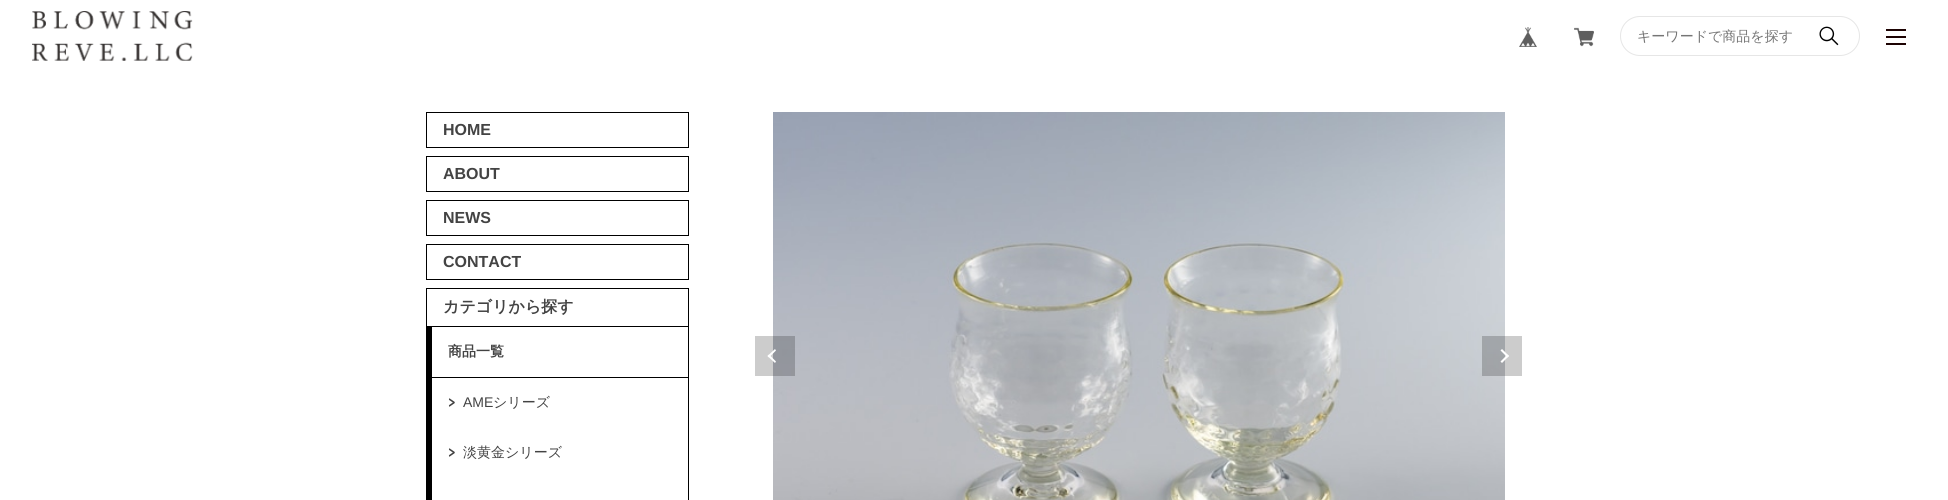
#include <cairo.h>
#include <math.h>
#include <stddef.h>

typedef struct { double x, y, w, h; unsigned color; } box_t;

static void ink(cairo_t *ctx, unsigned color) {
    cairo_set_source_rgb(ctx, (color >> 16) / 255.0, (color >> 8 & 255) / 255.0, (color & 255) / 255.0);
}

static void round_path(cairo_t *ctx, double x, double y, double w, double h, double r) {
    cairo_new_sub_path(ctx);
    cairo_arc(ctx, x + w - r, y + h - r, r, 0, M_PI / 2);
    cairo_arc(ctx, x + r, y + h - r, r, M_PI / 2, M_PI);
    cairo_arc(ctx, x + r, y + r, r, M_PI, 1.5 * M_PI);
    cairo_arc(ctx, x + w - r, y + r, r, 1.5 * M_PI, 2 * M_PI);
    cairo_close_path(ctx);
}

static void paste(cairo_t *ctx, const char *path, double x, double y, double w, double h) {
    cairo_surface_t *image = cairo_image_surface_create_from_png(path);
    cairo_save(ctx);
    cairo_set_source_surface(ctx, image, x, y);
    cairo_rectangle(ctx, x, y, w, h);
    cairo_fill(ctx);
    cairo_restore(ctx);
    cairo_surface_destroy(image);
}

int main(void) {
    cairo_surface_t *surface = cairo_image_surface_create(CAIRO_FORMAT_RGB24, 1948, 500);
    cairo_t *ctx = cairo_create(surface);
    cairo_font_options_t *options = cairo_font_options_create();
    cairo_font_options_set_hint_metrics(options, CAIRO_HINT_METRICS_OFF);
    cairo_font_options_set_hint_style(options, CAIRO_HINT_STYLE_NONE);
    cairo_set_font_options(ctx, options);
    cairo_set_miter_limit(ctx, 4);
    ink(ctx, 0xFFFFFF);
    cairo_paint(ctx);
    paste(ctx, "media/1.png", 32, 11, 161, 50);
    paste(ctx, "media/2.png", 1519, 27, 18, 20);
    paste(ctx, "media/3.png", 1574, 27, 20, 20);
    round_path(ctx, 1620.5, 16.5, 239, 39, 19.5);
    ink(ctx, 0xE6E6E6);
    cairo_set_line_width(ctx, 1);
    cairo_stroke(ctx);
    cairo_select_font_face(ctx, "WenQuanYi Zen Hei Medium", CAIRO_FONT_SLANT_NORMAL, CAIRO_FONT_WEIGHT_NORMAL);
    cairo_set_font_size(ctx, 14);
    ink(ctx, 0x757575);
    cairo_move_to(ctx, 1637, 41);
    cairo_show_text(ctx, "キーワードで商品を探す");
    paste(ctx, "media/4.png", 1819, 26, 20, 20);
    {
        static const box_t items[] = {
            {1886, 36, 20, 2, 0x1D0303},
            {1886, 29, 20, 2, 0x1D0303},
            {1886, 43, 20, 2, 0x1D0303},
        };
        for (size_t i = 0; i < sizeof items / sizeof *items; i++) {
            ink(ctx, items[i].color);
            cairo_rectangle(ctx, items[i].x, items[i].y, items[i].w, items[i].h);
            cairo_fill(ctx);
        }
    }
    cairo_rectangle(ctx, 426.5, 112.5, 262, 35);
    ink(ctx, 0x000000);
    cairo_stroke(ctx);
    cairo_select_font_face(ctx, "Liberation Sans", CAIRO_FONT_SLANT_NORMAL, CAIRO_FONT_WEIGHT_BOLD);
    cairo_set_font_size(ctx, 16);
    ink(ctx, 0x434343);
    cairo_move_to(ctx, 443, 135);
    cairo_show_text(ctx, "HOME");
    cairo_rectangle(ctx, 426.5, 156.5, 262, 35);
    ink(ctx, 0x000000);
    cairo_stroke(ctx);
    ink(ctx, 0x434343);
    cairo_move_to(ctx, 443, 179);
    cairo_show_text(ctx, "ABOUT");
    cairo_rectangle(ctx, 426.5, 200.5, 262, 35);
    ink(ctx, 0x000000);
    cairo_stroke(ctx);
    ink(ctx, 0x434343);
    cairo_move_to(ctx, 443, 223);
    cairo_show_text(ctx, "NEWS");
    cairo_rectangle(ctx, 426.5, 244.5, 262, 35);
    ink(ctx, 0x000000);
    cairo_stroke(ctx);
    ink(ctx, 0x434343);
    cairo_move_to(ctx, 443, 267);
    cairo_show_text(ctx, "CONTACT");
    {
        static const box_t items[] = {
            {426, 288, 263, 1, 0x000000},
            {688, 288, 1, 38, 0x000000},
            {426, 288, 1, 38, 0x000000},
        };
        for (size_t i = 0; i < sizeof items / sizeof *items; i++) {
            ink(ctx, items[i].color);
            cairo_rectangle(ctx, items[i].x, items[i].y, items[i].w, items[i].h);
            cairo_fill(ctx);
        }
    }
    cairo_select_font_face(ctx, "WenQuanYi Zen Hei", CAIRO_FONT_SLANT_NORMAL, CAIRO_FONT_WEIGHT_BOLD);
    ink(ctx, 0x434343);
    cairo_move_to(ctx, 443, 312);
    cairo_show_text(ctx, "カテゴリから探す");
    {
        static const box_t items[] = {
            {426, 326, 263, 1, 0x000000},
            {688, 326, 1, 174, 0x000000},
            {426, 326, 6, 174, 0x000000},
        };
        for (size_t i = 0; i < sizeof items / sizeof *items; i++) {
            ink(ctx, items[i].color);
            cairo_rectangle(ctx, items[i].x, items[i].y, items[i].w, items[i].h);
            cairo_fill(ctx);
        }
    }
    cairo_set_font_size(ctx, 14);
    ink(ctx, 0x434343);
    cairo_move_to(ctx, 448, 356);
    cairo_show_text(ctx, "商品一覧");
    ink(ctx, 0x000000);
    cairo_rectangle(ctx, 432, 377, 256, 1);
    cairo_fill(ctx);
    cairo_select_font_face(ctx, "Rubik", CAIRO_FONT_SLANT_NORMAL, CAIRO_FONT_WEIGHT_BOLD);
    ink(ctx, 0x434343);
    cairo_move_to(ctx, 448, 407);
    cairo_show_text(ctx, ">");
    cairo_select_font_face(ctx, "Liberation Sans", CAIRO_FONT_SLANT_NORMAL, CAIRO_FONT_WEIGHT_NORMAL);
    cairo_move_to(ctx, 463, 407);
    cairo_show_text(ctx, "AME");
    cairo_select_font_face(ctx, "WenQuanYi Zen Hei Medium", CAIRO_FONT_SLANT_NORMAL, CAIRO_FONT_WEIGHT_NORMAL);
    cairo_move_to(ctx, 493, 407);
    cairo_show_text(ctx, "シリーズ");
    cairo_select_font_face(ctx, "Rubik", CAIRO_FONT_SLANT_NORMAL, CAIRO_FONT_WEIGHT_BOLD);
    cairo_move_to(ctx, 448, 457);
    cairo_show_text(ctx, ">");
    cairo_select_font_face(ctx, "WenQuanYi Zen Hei Medium", CAIRO_FONT_SLANT_NORMAL, CAIRO_FONT_WEIGHT_NORMAL);
    cairo_move_to(ctx, 463, 457);
    cairo_show_text(ctx, "淡黄金シリーズ");
    paste(ctx, "media/5.png", 773, 112, 732, 388);
    cairo_set_source_rgba(ctx, 0, 0, 0, 0.2);
    cairo_rectangle(ctx, 755, 336, 40, 40);
    cairo_fill(ctx);
    ink(ctx, 0xFFFFFF);
    cairo_new_path(ctx);
    cairo_move_to(ctx, 775, 363);
    cairo_line_to(ctx, 767.5, 356);
    cairo_line_to(ctx, 769, 354.5);
    cairo_line_to(ctx, 776, 361.5);
    cairo_close_path(ctx);
    cairo_fill(ctx);
    cairo_new_path(ctx);
    cairo_move_to(ctx, 769, 357.5);
    cairo_line_to(ctx, 767.5, 356);
    cairo_line_to(ctx, 775, 349);
    cairo_line_to(ctx, 776, 350.5);
    cairo_close_path(ctx);
    cairo_fill(ctx);
    cairo_set_source_rgba(ctx, 0, 0, 0, 0.2);
    cairo_rectangle(ctx, 1482, 336, 40, 40);
    cairo_fill(ctx);
    ink(ctx, 0xFFFFFF);
    cairo_new_path(ctx);
    cairo_move_to(ctx, 1502, 349);
    cairo_line_to(ctx, 1509, 356);
    cairo_line_to(ctx, 1507.5, 357.5);
    cairo_line_to(ctx, 1500.5, 350.5);
    cairo_close_path(ctx);
    cairo_fill(ctx);
    cairo_new_path(ctx);
    cairo_move_to(ctx, 1507.5, 354.5);
    cairo_line_to(ctx, 1509, 356);
    cairo_line_to(ctx, 1502, 363);
    cairo_line_to(ctx, 1500.5, 361.5);
    cairo_close_path(ctx);
    cairo_fill(ctx);
    cairo_surface_write_to_png(surface, "image.png");
    cairo_font_options_destroy(options);
    cairo_destroy(ctx);
    cairo_surface_destroy(surface);
    return 0;
}
